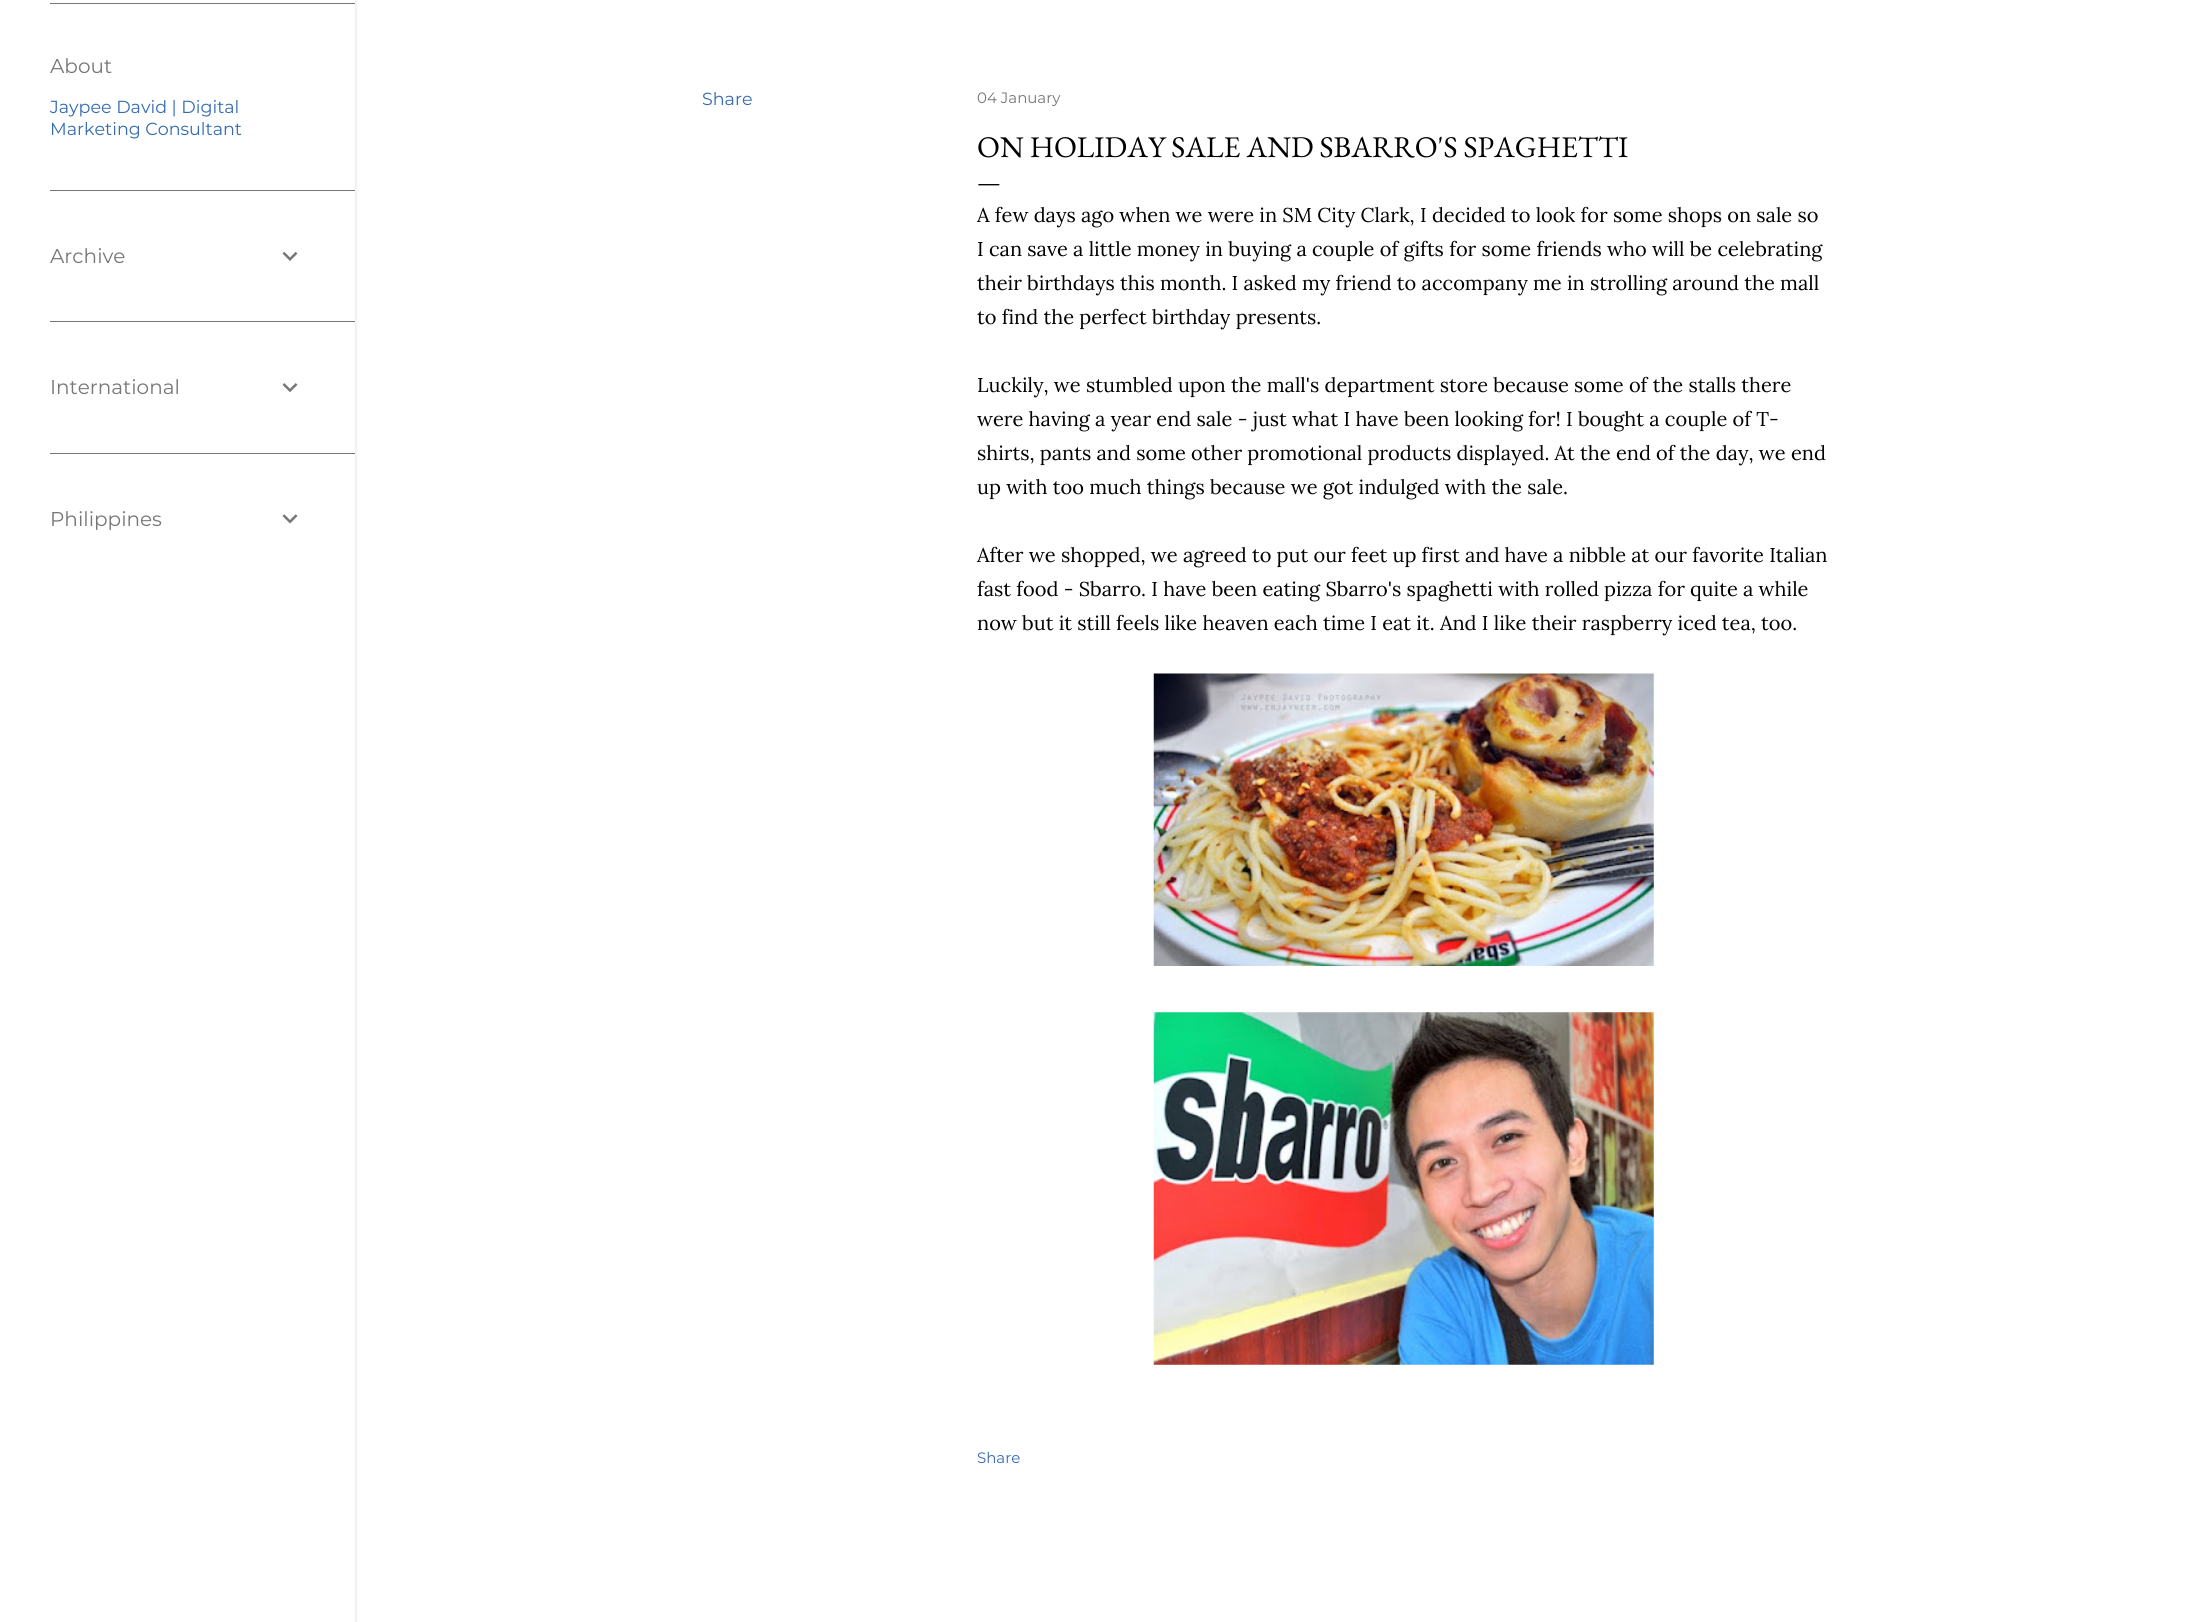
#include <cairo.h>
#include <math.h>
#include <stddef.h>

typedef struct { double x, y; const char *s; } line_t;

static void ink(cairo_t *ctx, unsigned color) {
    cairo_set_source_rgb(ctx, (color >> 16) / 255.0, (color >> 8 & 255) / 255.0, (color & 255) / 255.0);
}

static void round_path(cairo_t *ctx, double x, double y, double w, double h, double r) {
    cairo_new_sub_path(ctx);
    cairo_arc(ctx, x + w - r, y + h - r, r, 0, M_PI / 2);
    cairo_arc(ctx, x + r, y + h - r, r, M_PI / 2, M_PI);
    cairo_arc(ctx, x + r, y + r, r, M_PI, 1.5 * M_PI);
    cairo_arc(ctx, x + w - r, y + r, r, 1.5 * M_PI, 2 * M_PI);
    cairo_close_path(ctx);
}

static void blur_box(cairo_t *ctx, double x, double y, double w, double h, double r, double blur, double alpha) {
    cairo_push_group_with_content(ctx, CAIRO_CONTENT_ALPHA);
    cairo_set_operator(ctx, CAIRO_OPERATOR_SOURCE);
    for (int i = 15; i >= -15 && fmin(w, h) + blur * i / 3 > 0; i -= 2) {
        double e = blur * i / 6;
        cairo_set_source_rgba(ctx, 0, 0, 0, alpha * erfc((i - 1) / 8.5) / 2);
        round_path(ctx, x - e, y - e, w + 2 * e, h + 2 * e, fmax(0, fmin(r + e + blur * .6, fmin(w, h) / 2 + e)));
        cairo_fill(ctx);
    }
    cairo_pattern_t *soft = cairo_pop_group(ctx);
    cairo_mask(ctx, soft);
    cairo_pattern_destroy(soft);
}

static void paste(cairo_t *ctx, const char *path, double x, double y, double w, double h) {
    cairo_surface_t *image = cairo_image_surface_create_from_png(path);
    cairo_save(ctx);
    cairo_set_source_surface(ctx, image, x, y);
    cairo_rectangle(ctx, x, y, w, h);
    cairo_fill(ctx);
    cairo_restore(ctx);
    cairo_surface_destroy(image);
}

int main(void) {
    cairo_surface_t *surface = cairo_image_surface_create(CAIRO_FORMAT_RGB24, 2201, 1622);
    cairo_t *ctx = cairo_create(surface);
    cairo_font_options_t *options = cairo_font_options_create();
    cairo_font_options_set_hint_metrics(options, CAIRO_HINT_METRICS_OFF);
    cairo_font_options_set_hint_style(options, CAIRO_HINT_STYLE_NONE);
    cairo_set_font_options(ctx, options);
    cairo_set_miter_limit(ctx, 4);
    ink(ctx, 0xFFFFFF);
    cairo_paint(ctx);
    cairo_save(ctx);
    cairo_rectangle(ctx, 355, 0, 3, 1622);
    cairo_clip(ctx);
    ink(ctx, 0x000000);
    blur_box(ctx, 1, -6, 355, 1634, 0, 2, 0.1);
    cairo_restore(ctx);
    ink(ctx, 0x767676);
    cairo_rectangle(ctx, 50, 3, 305, 1);
    cairo_fill(ctx);
    cairo_select_font_face(ctx, "Montserrat", CAIRO_FONT_SLANT_NORMAL, CAIRO_FONT_WEIGHT_NORMAL);
    cairo_set_font_size(ctx, 20);
    cairo_move_to(ctx, 50, 73);
    cairo_show_text(ctx, "About");
    cairo_set_font_size(ctx, 17.5);
    ink(ctx, 0x346BB2);
    cairo_move_to(ctx, 50, 113);
    cairo_show_text(ctx, "Jaypee David | Digital");
    cairo_move_to(ctx, 50, 135);
    cairo_show_text(ctx, "Marketing Consultant");
    ink(ctx, 0x767676);
    cairo_rectangle(ctx, 50, 190, 305, 1);
    cairo_fill(ctx);
    cairo_set_font_size(ctx, 20);
    cairo_move_to(ctx, 50, 263);
    cairo_show_text(ctx, "Archive");
    paste(ctx, "media/1.png", 282, 251, 16, 10);
    cairo_rectangle(ctx, 50, 321, 305, 1);
    cairo_fill(ctx);
    cairo_move_to(ctx, 50, 394);
    cairo_show_text(ctx, "International");
    paste(ctx, "media/2.png", 282, 383, 16, 9);
    cairo_rectangle(ctx, 50, 453, 305, 1);
    cairo_fill(ctx);
    cairo_move_to(ctx, 50, 526);
    cairo_show_text(ctx, "Philippines");
    paste(ctx, "media/3.png", 282, 514, 16, 10);
    cairo_set_font_size(ctx, 17.5);
    ink(ctx, 0x346BB2);
    cairo_move_to(ctx, 702, 105);
    cairo_show_text(ctx, "Share");
    cairo_set_font_size(ctx, 15);
    ink(ctx, 0x767676);
    cairo_move_to(ctx, 977, 103);
    cairo_show_text(ctx, "04 January");
    cairo_select_font_face(ctx, "EB Garamond", CAIRO_FONT_SLANT_NORMAL, CAIRO_FONT_WEIGHT_NORMAL);
    cairo_set_font_size(ctx, 30);
    ink(ctx, 0x000000);
    cairo_move_to(ctx, 977, 157);
    cairo_show_text(ctx, "ON HOLIDAY SALE AND SBARRO'S SPAGHETTI");
    cairo_set_font_size(ctx, 25);
    cairo_move_to(ctx, 977, 190);
    cairo_show_text(ctx, "—");
    cairo_select_font_face(ctx, "Lora", CAIRO_FONT_SLANT_NORMAL, CAIRO_FONT_WEIGHT_NORMAL);
    cairo_set_font_size(ctx, 20);
    {
        static const line_t items[] = {
            {977, 222, "A few days ago when we were in SM City Clark, I decided to look for some shops on sale so"},
            {977, 256, "I can save a little money in buying a couple of gifts for some friends who will be celebrating"},
            {977, 290, "their birthdays this month. I asked my friend to accompany me in strolling around the mall"},
            {977, 324, "to find the perfect birthday presents."},
            {977, 392, "Luckily, we stumbled upon the mall's department store because some of the stalls there"},
            {977, 426, "were having a year end sale - just what I have been looking for! I bought a couple of T-"},
            {977, 460, "shirts, pants and some other promotional products displayed. At the end of the day, we end"},
            {977, 494, "up with too much things because we got indulged with the sale."},
            {977, 562, "After we shopped, we agreed to put our feet up first and have a nibble at our favorite Italian"},
            {977, 596, "fast food - Sbarro. I have been eating Sbarro's spaghetti with rolled pizza for quite a while"},
            {977, 630, "now but it still feels like heaven each time I eat it. And I like their raspberry iced tea, too."},
        };
        for (size_t i = 0; i < sizeof items / sizeof *items; i++) {
            cairo_move_to(ctx, items[i].x, items[i].y);
            cairo_show_text(ctx, items[i].s);
        }
    }
    paste(ctx, "media/4.png", 1153, 673, 501, 293);
    paste(ctx, "media/5.png", 1153, 1012, 501, 353);
    cairo_select_font_face(ctx, "Montserrat", CAIRO_FONT_SLANT_NORMAL, CAIRO_FONT_WEIGHT_NORMAL);
    cairo_set_font_size(ctx, 15);
    ink(ctx, 0x346BB2);
    cairo_move_to(ctx, 977, 1463);
    cairo_show_text(ctx, "Share");
    cairo_surface_write_to_png(surface, "image.png");
    cairo_font_options_destroy(options);
    cairo_destroy(ctx);
    cairo_surface_destroy(surface);
    return 0;
}
